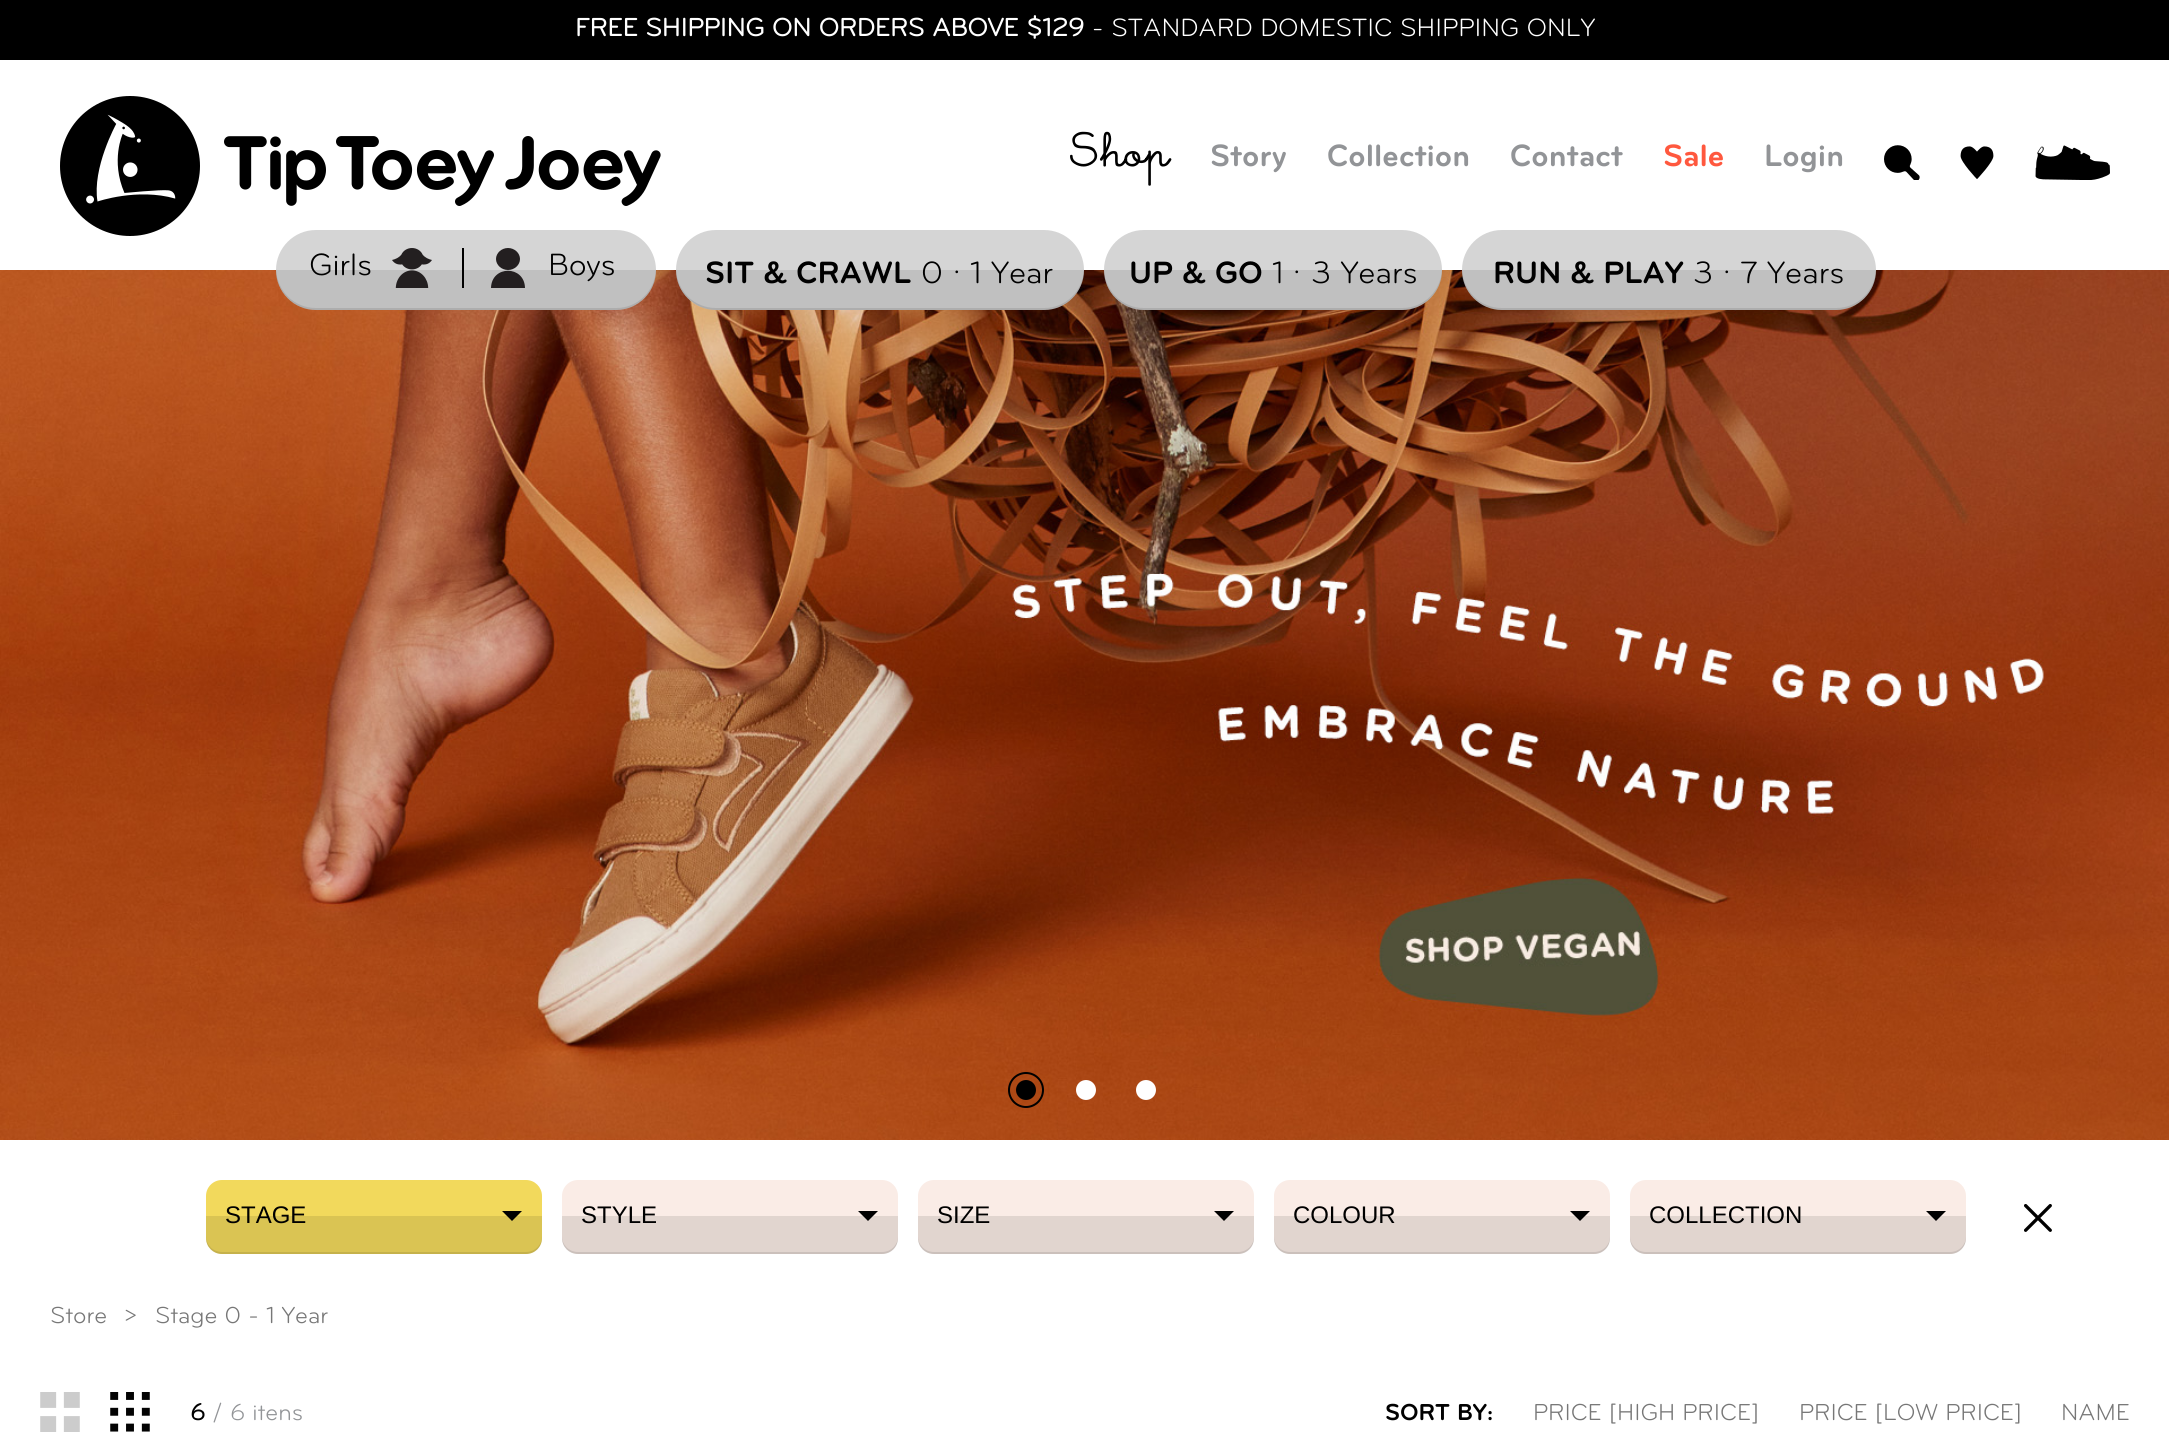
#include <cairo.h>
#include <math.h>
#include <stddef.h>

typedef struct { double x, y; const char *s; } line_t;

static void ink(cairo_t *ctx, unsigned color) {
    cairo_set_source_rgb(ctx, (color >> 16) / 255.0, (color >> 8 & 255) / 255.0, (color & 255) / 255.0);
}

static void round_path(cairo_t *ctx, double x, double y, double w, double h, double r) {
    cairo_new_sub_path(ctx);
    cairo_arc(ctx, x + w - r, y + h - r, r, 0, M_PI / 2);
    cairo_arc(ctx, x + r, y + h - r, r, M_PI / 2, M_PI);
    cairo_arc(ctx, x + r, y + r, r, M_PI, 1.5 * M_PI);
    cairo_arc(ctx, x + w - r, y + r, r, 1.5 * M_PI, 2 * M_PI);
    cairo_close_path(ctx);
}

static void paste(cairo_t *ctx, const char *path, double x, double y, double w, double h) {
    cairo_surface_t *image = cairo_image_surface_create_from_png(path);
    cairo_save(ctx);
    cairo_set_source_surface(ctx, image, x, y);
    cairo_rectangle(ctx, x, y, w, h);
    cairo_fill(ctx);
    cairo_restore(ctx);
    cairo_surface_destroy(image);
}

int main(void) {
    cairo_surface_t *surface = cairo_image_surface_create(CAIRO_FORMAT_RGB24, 2169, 1433);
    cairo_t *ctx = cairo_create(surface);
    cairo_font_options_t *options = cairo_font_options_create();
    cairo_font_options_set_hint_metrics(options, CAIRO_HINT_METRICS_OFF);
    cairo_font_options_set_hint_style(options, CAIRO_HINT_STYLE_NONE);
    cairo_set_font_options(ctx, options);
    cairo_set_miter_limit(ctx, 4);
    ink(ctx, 0xFFFFFF);
    cairo_paint(ctx);
    ink(ctx, 0x000000);
    cairo_rectangle(ctx, 0, 0, 2169, 60);
    cairo_fill(ctx);
    cairo_select_font_face(ctx, "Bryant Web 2", CAIRO_FONT_SLANT_NORMAL, CAIRO_FONT_WEIGHT_BOLD);
    cairo_set_font_size(ctx, 26);
    ink(ctx, 0xFFFFFF);
    cairo_move_to(ctx, 575, 36);
    cairo_show_text(ctx, "FREE SHIPPING ON ORDERS ABOVE $129");
    cairo_select_font_face(ctx, "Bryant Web", CAIRO_FONT_SLANT_NORMAL, CAIRO_FONT_WEIGHT_NORMAL);
    cairo_move_to(ctx, 1092, 36);
    cairo_show_text(ctx, "- STANDARD DOMESTIC SHIPPING ONLY");
    paste(ctx, "media/1.png", 60, 96, 140, 140);
    paste(ctx, "media/2.png", 224, 136, 102, 70);
    paste(ctx, "media/3.png", 336, 136, 158, 70);
    paste(ctx, "media/4.png", 505, 136, 156, 70);
    cairo_select_font_face(ctx, "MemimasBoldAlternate", CAIRO_FONT_SLANT_NORMAL, CAIRO_FONT_WEIGHT_BOLD);
    cairo_set_font_size(ctx, 54);
    ink(ctx, 0x000000);
    cairo_move_to(ctx, 1069, 166);
    cairo_show_text(ctx, "Shop");
    cairo_select_font_face(ctx, "Bryant Web", CAIRO_FONT_SLANT_NORMAL, CAIRO_FONT_WEIGHT_BOLD);
    cairo_set_font_size(ctx, 32);
    ink(ctx, 0x929497);
    {
        static const line_t items[] = {
            {1210, 166, "Story"},
            {1327, 166, "Collection"},
            {1510, 166, "Contact"},
        };
        for (size_t i = 0; i < sizeof items / sizeof *items; i++) {
            cairo_move_to(ctx, items[i].x, items[i].y);
            cairo_show_text(ctx, items[i].s);
        }
    }
    ink(ctx, 0xFF583E);
    cairo_move_to(ctx, 1663, 166);
    cairo_show_text(ctx, "Sale");
    ink(ctx, 0x929497);
    cairo_move_to(ctx, 1764, 166);
    cairo_show_text(ctx, "Login");
    paste(ctx, "media/5.png", 1884, 145, 36, 35);
    paste(ctx, "media/6.png", 1960, 146, 34, 33);
    paste(ctx, "media/7.png", 2035, 145, 75, 35);
    paste(ctx, "media/9.png", 0, 270, 2169, 870);
    ink(ctx, 0xD5D5D5);
    round_path(ctx, 276, 230, 380, 80, 40);
    cairo_fill(ctx);
    cairo_set_source_rgba(ctx, 0, 0, 0, 0.1);
    cairo_new_path(ctx);
    cairo_move_to(ctx, 276, 269);
    cairo_line_to(ctx, 276, 270);
    cairo_curve_to(ctx, 276, 292, 294, 310, 316, 310);
    cairo_line_to(ctx, 616, 310);
    cairo_curve_to(ctx, 638, 310, 656, 292, 656, 270);
    cairo_line_to(ctx, 656, 269);
    cairo_curve_to(ctx, 655, 291, 638, 308, 616, 308);
    cairo_line_to(ctx, 316, 308);
    cairo_curve_to(ctx, 294, 308, 277, 291, 276, 269);
    cairo_close_path(ctx);
    cairo_fill(ctx);
    cairo_new_path(ctx);
    cairo_move_to(ctx, 276, 270);
    cairo_line_to(ctx, 656, 270);
    cairo_curve_to(ctx, 656, 292, 638, 310, 616, 310);
    cairo_line_to(ctx, 316, 310);
    cairo_curve_to(ctx, 294, 310, 276, 292, 276, 270);
    cairo_close_path(ctx);
    cairo_fill(ctx);
    ink(ctx, 0x000000);
    cairo_rectangle(ctx, 462, 248, 2, 40);
    cairo_fill(ctx);
    cairo_select_font_face(ctx, "Bryant Web", CAIRO_FONT_SLANT_NORMAL, CAIRO_FONT_WEIGHT_NORMAL);
    cairo_move_to(ctx, 309, 275);
    cairo_show_text(ctx, "Girls");
    paste(ctx, "media/8.png", 392, 248, 40, 40);
    ink(ctx, 0x231F20);
    cairo_new_path(ctx);
    cairo_move_to(ctx, 508, 248);
    cairo_curve_to(ctx, 514.5, 248, 520, 253, 520, 259);
    cairo_curve_to(ctx, 520, 265, 514.5, 270, 508, 270);
    cairo_curve_to(ctx, 501.5, 270, 496, 265, 496, 259);
    cairo_curve_to(ctx, 496, 253, 501.5, 248, 508, 248);
    cairo_close_path(ctx);
    cairo_fill(ctx);
    cairo_new_path(ctx);
    cairo_move_to(ctx, 525, 288);
    cairo_curve_to(ctx, 524.5, 265, 491.5, 265, 491, 288);
    cairo_close_path(ctx);
    cairo_fill(ctx);
    ink(ctx, 0x000000);
    cairo_move_to(ctx, 548, 275);
    cairo_show_text(ctx, "Boys");
    ink(ctx, 0xD5D5D5);
    round_path(ctx, 676, 230, 408, 80, 40);
    cairo_fill(ctx);
    cairo_set_source_rgba(ctx, 0, 0, 0, 0.1);
    cairo_new_path(ctx);
    cairo_move_to(ctx, 676, 269);
    cairo_line_to(ctx, 676, 270);
    cairo_curve_to(ctx, 676, 292, 694, 310, 716, 310);
    cairo_line_to(ctx, 1044, 310);
    cairo_curve_to(ctx, 1066, 310, 1084, 292, 1084, 270);
    cairo_line_to(ctx, 1084, 269);
    cairo_curve_to(ctx, 1083, 291, 1066, 308, 1044, 308);
    cairo_line_to(ctx, 716, 308);
    cairo_curve_to(ctx, 694, 308, 677, 291, 676, 269);
    cairo_close_path(ctx);
    cairo_fill(ctx);
    cairo_select_font_face(ctx, "Bryant Web", CAIRO_FONT_SLANT_NORMAL, CAIRO_FONT_WEIGHT_BOLD);
    ink(ctx, 0x000000);
    cairo_move_to(ctx, 705, 283);
    cairo_show_text(ctx, "SIT & CRAWL");
    cairo_select_font_face(ctx, "Bryant Web", CAIRO_FONT_SLANT_NORMAL, CAIRO_FONT_WEIGHT_NORMAL);
    {
        static const line_t items[] = {
            {921, 283, "0"},
            {953, 273, "."},
            {970, 283, "1 Year"},
        };
        for (size_t i = 0; i < sizeof items / sizeof *items; i++) {
            cairo_move_to(ctx, items[i].x, items[i].y);
            cairo_show_text(ctx, items[i].s);
        }
    }
    cairo_set_source_rgba(ctx, 0, 0, 0, 0.1);
    cairo_new_path(ctx);
    cairo_move_to(ctx, 676, 270);
    cairo_line_to(ctx, 1084, 270);
    cairo_curve_to(ctx, 1084, 292, 1066, 310, 1044, 310);
    cairo_line_to(ctx, 716, 310);
    cairo_curve_to(ctx, 694, 310, 676, 292, 676, 270);
    cairo_close_path(ctx);
    cairo_fill(ctx);
    ink(ctx, 0xD5D5D5);
    round_path(ctx, 1104, 230, 338, 80, 40);
    cairo_fill(ctx);
    cairo_set_source_rgba(ctx, 0, 0, 0, 0.1);
    cairo_new_path(ctx);
    cairo_move_to(ctx, 1104, 269);
    cairo_line_to(ctx, 1104, 270);
    cairo_curve_to(ctx, 1104, 292, 1122, 310, 1144, 310);
    cairo_line_to(ctx, 1402, 310);
    cairo_curve_to(ctx, 1424, 310, 1442, 292, 1442, 270);
    cairo_line_to(ctx, 1442, 269);
    cairo_curve_to(ctx, 1441, 291, 1424, 308, 1402, 308);
    cairo_line_to(ctx, 1144, 308);
    cairo_curve_to(ctx, 1122, 308, 1105, 291, 1104, 269);
    cairo_close_path(ctx);
    cairo_fill(ctx);
    cairo_select_font_face(ctx, "Bryant Web", CAIRO_FONT_SLANT_NORMAL, CAIRO_FONT_WEIGHT_BOLD);
    ink(ctx, 0x000000);
    cairo_move_to(ctx, 1129, 283);
    cairo_show_text(ctx, "UP & GO");
    cairo_select_font_face(ctx, "Bryant Web", CAIRO_FONT_SLANT_NORMAL, CAIRO_FONT_WEIGHT_NORMAL);
    {
        static const line_t items[] = {
            {1272, 283, "1"},
            {1293, 273, "."},
            {1311, 283, "3 Years"},
        };
        for (size_t i = 0; i < sizeof items / sizeof *items; i++) {
            cairo_move_to(ctx, items[i].x, items[i].y);
            cairo_show_text(ctx, items[i].s);
        }
    }
    cairo_set_source_rgba(ctx, 0, 0, 0, 0.1);
    cairo_new_path(ctx);
    cairo_move_to(ctx, 1104, 270);
    cairo_line_to(ctx, 1442, 270);
    cairo_curve_to(ctx, 1442, 292, 1424, 310, 1402, 310);
    cairo_line_to(ctx, 1144, 310);
    cairo_curve_to(ctx, 1122, 310, 1104, 292, 1104, 270);
    cairo_close_path(ctx);
    cairo_fill(ctx);
    ink(ctx, 0xD5D5D5);
    round_path(ctx, 1462, 230, 414, 80, 40);
    cairo_fill(ctx);
    cairo_set_source_rgba(ctx, 0, 0, 0, 0.1);
    cairo_new_path(ctx);
    cairo_move_to(ctx, 1462, 269);
    cairo_line_to(ctx, 1462, 270);
    cairo_curve_to(ctx, 1462, 292, 1480, 310, 1502, 310);
    cairo_line_to(ctx, 1836, 310);
    cairo_curve_to(ctx, 1858, 310, 1876, 292, 1876, 270);
    cairo_line_to(ctx, 1876, 269);
    cairo_curve_to(ctx, 1875, 291, 1858, 308, 1836, 308);
    cairo_line_to(ctx, 1502, 308);
    cairo_curve_to(ctx, 1480, 308, 1463, 291, 1462, 269);
    cairo_close_path(ctx);
    cairo_fill(ctx);
    cairo_select_font_face(ctx, "Bryant Web", CAIRO_FONT_SLANT_NORMAL, CAIRO_FONT_WEIGHT_BOLD);
    ink(ctx, 0x000000);
    cairo_move_to(ctx, 1493, 283);
    cairo_show_text(ctx, "RUN & PLAY");
    cairo_select_font_face(ctx, "Bryant Web", CAIRO_FONT_SLANT_NORMAL, CAIRO_FONT_WEIGHT_NORMAL);
    {
        static const line_t items[] = {
            {1693, 283, "3"},
            {1723, 273, "."},
            {1740, 283, "7 Years"},
        };
        for (size_t i = 0; i < sizeof items / sizeof *items; i++) {
            cairo_move_to(ctx, items[i].x, items[i].y);
            cairo_show_text(ctx, items[i].s);
        }
    }
    cairo_set_source_rgba(ctx, 0, 0, 0, 0.1);
    cairo_new_path(ctx);
    cairo_move_to(ctx, 1462, 270);
    cairo_line_to(ctx, 1876, 270);
    cairo_curve_to(ctx, 1876, 292, 1858, 310, 1836, 310);
    cairo_line_to(ctx, 1502, 310);
    cairo_curve_to(ctx, 1480, 310, 1462, 292, 1462, 270);
    cairo_close_path(ctx);
    cairo_fill(ctx);
    ink(ctx, 0x000000);
    cairo_arc(ctx, 1026, 1090, 10, 0, 2 * M_PI);
    cairo_fill(ctx);
    cairo_arc(ctx, 1026, 1090, 17, 0, 2 * M_PI);
    cairo_stroke(ctx);
    ink(ctx, 0xFFFFFF);
    cairo_arc(ctx, 1086, 1090, 10, 0, 2 * M_PI);
    cairo_fill(ctx);
    cairo_arc(ctx, 1146, 1090, 10, 0, 2 * M_PI);
    cairo_fill(ctx);
    ink(ctx, 0xF2D95C);
    round_path(ctx, 206, 1180, 336, 74, 16);
    cairo_fill(ctx);
    cairo_set_source_rgba(ctx, 0, 0, 0, 0.1);
    cairo_new_path(ctx);
    cairo_move_to(ctx, 206, 1236);
    cairo_line_to(ctx, 206, 1238);
    cairo_curve_to(ctx, 206, 1247, 213, 1254, 222, 1254);
    cairo_line_to(ctx, 526, 1254);
    cairo_curve_to(ctx, 535, 1254, 542, 1247, 542, 1238);
    cairo_line_to(ctx, 542, 1236);
    cairo_curve_to(ctx, 542, 1245, 535, 1252, 526, 1252);
    cairo_line_to(ctx, 222, 1252);
    cairo_curve_to(ctx, 213, 1252, 206, 1245, 206, 1236);
    cairo_close_path(ctx);
    cairo_fill(ctx);
    cairo_select_font_face(ctx, "Liberation Sans", CAIRO_FONT_SLANT_NORMAL, CAIRO_FONT_WEIGHT_NORMAL);
    cairo_set_font_size(ctx, 24);
    ink(ctx, 0x000000);
    cairo_move_to(ctx, 225, 1223);
    cairo_show_text(ctx, "STAGE");
    cairo_new_path(ctx);
    cairo_move_to(ctx, 502, 1211);
    cairo_line_to(ctx, 522, 1211);
    cairo_line_to(ctx, 512, 1221);
    cairo_close_path(ctx);
    cairo_fill(ctx);
    cairo_set_source_rgba(ctx, 0, 0, 0, 0.1);
    cairo_new_path(ctx);
    cairo_move_to(ctx, 206, 1216);
    cairo_line_to(ctx, 542, 1216);
    cairo_line_to(ctx, 542, 1238);
    cairo_curve_to(ctx, 542, 1247, 535, 1254, 526, 1254);
    cairo_line_to(ctx, 222, 1254);
    cairo_curve_to(ctx, 213, 1254, 206, 1247, 206, 1238);
    cairo_close_path(ctx);
    cairo_fill(ctx);
    ink(ctx, 0xFAECE6);
    round_path(ctx, 562, 1180, 336, 74, 16);
    cairo_fill(ctx);
    cairo_set_source_rgba(ctx, 0, 0, 0, 0.1);
    cairo_new_path(ctx);
    cairo_move_to(ctx, 562, 1236);
    cairo_line_to(ctx, 562, 1238);
    cairo_curve_to(ctx, 562, 1247, 569, 1254, 578, 1254);
    cairo_line_to(ctx, 882, 1254);
    cairo_curve_to(ctx, 891, 1254, 898, 1247, 898, 1238);
    cairo_line_to(ctx, 898, 1236);
    cairo_curve_to(ctx, 898, 1245, 891, 1252, 882, 1252);
    cairo_line_to(ctx, 578, 1252);
    cairo_curve_to(ctx, 569, 1252, 562, 1245, 562, 1236);
    cairo_close_path(ctx);
    cairo_fill(ctx);
    ink(ctx, 0x000000);
    cairo_move_to(ctx, 581, 1223);
    cairo_show_text(ctx, "STYLE");
    cairo_new_path(ctx);
    cairo_move_to(ctx, 858, 1211);
    cairo_line_to(ctx, 878, 1211);
    cairo_line_to(ctx, 868, 1221);
    cairo_close_path(ctx);
    cairo_fill(ctx);
    cairo_set_source_rgba(ctx, 0, 0, 0, 0.1);
    cairo_new_path(ctx);
    cairo_move_to(ctx, 562, 1216);
    cairo_line_to(ctx, 898, 1216);
    cairo_line_to(ctx, 898, 1238);
    cairo_curve_to(ctx, 898, 1247, 891, 1254, 882, 1254);
    cairo_line_to(ctx, 578, 1254);
    cairo_curve_to(ctx, 569, 1254, 562, 1247, 562, 1238);
    cairo_close_path(ctx);
    cairo_fill(ctx);
    ink(ctx, 0xFAECE6);
    round_path(ctx, 918, 1180, 336, 74, 16);
    cairo_fill(ctx);
    cairo_set_source_rgba(ctx, 0, 0, 0, 0.1);
    cairo_new_path(ctx);
    cairo_move_to(ctx, 918, 1236);
    cairo_line_to(ctx, 918, 1238);
    cairo_curve_to(ctx, 918, 1247, 925, 1254, 934, 1254);
    cairo_line_to(ctx, 1238, 1254);
    cairo_curve_to(ctx, 1247, 1254, 1254, 1247, 1254, 1238);
    cairo_line_to(ctx, 1254, 1236);
    cairo_curve_to(ctx, 1254, 1245, 1247, 1252, 1238, 1252);
    cairo_line_to(ctx, 934, 1252);
    cairo_curve_to(ctx, 925, 1252, 918, 1245, 918, 1236);
    cairo_close_path(ctx);
    cairo_fill(ctx);
    ink(ctx, 0x000000);
    cairo_move_to(ctx, 937, 1223);
    cairo_show_text(ctx, "SIZE");
    cairo_new_path(ctx);
    cairo_move_to(ctx, 1214, 1211);
    cairo_line_to(ctx, 1234, 1211);
    cairo_line_to(ctx, 1224, 1221);
    cairo_close_path(ctx);
    cairo_fill(ctx);
    cairo_set_source_rgba(ctx, 0, 0, 0, 0.1);
    cairo_new_path(ctx);
    cairo_move_to(ctx, 918, 1216);
    cairo_line_to(ctx, 1254, 1216);
    cairo_line_to(ctx, 1254, 1238);
    cairo_curve_to(ctx, 1254, 1247, 1247, 1254, 1238, 1254);
    cairo_line_to(ctx, 934, 1254);
    cairo_curve_to(ctx, 925, 1254, 918, 1247, 918, 1238);
    cairo_close_path(ctx);
    cairo_fill(ctx);
    ink(ctx, 0xFAECE6);
    round_path(ctx, 1274, 1180, 336, 74, 16);
    cairo_fill(ctx);
    cairo_set_source_rgba(ctx, 0, 0, 0, 0.1);
    cairo_new_path(ctx);
    cairo_move_to(ctx, 1274, 1236);
    cairo_line_to(ctx, 1274, 1238);
    cairo_curve_to(ctx, 1274, 1247, 1281, 1254, 1290, 1254);
    cairo_line_to(ctx, 1594, 1254);
    cairo_curve_to(ctx, 1603, 1254, 1610, 1247, 1610, 1238);
    cairo_line_to(ctx, 1610, 1236);
    cairo_curve_to(ctx, 1610, 1245, 1603, 1252, 1594, 1252);
    cairo_line_to(ctx, 1290, 1252);
    cairo_curve_to(ctx, 1281, 1252, 1274, 1245, 1274, 1236);
    cairo_close_path(ctx);
    cairo_fill(ctx);
    ink(ctx, 0x000000);
    cairo_move_to(ctx, 1293, 1223);
    cairo_show_text(ctx, "COLOUR");
    cairo_new_path(ctx);
    cairo_move_to(ctx, 1570, 1211);
    cairo_line_to(ctx, 1590, 1211);
    cairo_line_to(ctx, 1580, 1221);
    cairo_close_path(ctx);
    cairo_fill(ctx);
    cairo_set_source_rgba(ctx, 0, 0, 0, 0.1);
    cairo_new_path(ctx);
    cairo_move_to(ctx, 1274, 1216);
    cairo_line_to(ctx, 1610, 1216);
    cairo_line_to(ctx, 1610, 1238);
    cairo_curve_to(ctx, 1610, 1247, 1603, 1254, 1594, 1254);
    cairo_line_to(ctx, 1290, 1254);
    cairo_curve_to(ctx, 1281, 1254, 1274, 1247, 1274, 1238);
    cairo_close_path(ctx);
    cairo_fill(ctx);
    ink(ctx, 0xFAECE6);
    round_path(ctx, 1630, 1180, 336, 74, 16);
    cairo_fill(ctx);
    cairo_set_source_rgba(ctx, 0, 0, 0, 0.1);
    cairo_new_path(ctx);
    cairo_move_to(ctx, 1630, 1236);
    cairo_line_to(ctx, 1630, 1238);
    cairo_curve_to(ctx, 1630, 1247, 1637, 1254, 1646, 1254);
    cairo_line_to(ctx, 1950, 1254);
    cairo_curve_to(ctx, 1959, 1254, 1966, 1247, 1966, 1238);
    cairo_line_to(ctx, 1966, 1236);
    cairo_curve_to(ctx, 1966, 1245, 1959, 1252, 1950, 1252);
    cairo_line_to(ctx, 1646, 1252);
    cairo_curve_to(ctx, 1637, 1252, 1630, 1245, 1630, 1236);
    cairo_close_path(ctx);
    cairo_fill(ctx);
    ink(ctx, 0x000000);
    cairo_move_to(ctx, 1649, 1223);
    cairo_show_text(ctx, "COLLECTION");
    cairo_new_path(ctx);
    cairo_move_to(ctx, 1926, 1211);
    cairo_line_to(ctx, 1946, 1211);
    cairo_line_to(ctx, 1936, 1221);
    cairo_close_path(ctx);
    cairo_fill(ctx);
    cairo_set_source_rgba(ctx, 0, 0, 0, 0.1);
    cairo_new_path(ctx);
    cairo_move_to(ctx, 1630, 1216);
    cairo_line_to(ctx, 1966, 1216);
    cairo_line_to(ctx, 1966, 1238);
    cairo_curve_to(ctx, 1966, 1247, 1959, 1254, 1950, 1254);
    cairo_line_to(ctx, 1646, 1254);
    cairo_curve_to(ctx, 1637, 1254, 1630, 1247, 1630, 1238);
    cairo_close_path(ctx);
    cairo_fill(ctx);
    paste(ctx, "media/10.png", 2024, 1204, 28, 28);
    cairo_select_font_face(ctx, "Bryant Web", CAIRO_FONT_SLANT_NORMAL, CAIRO_FONT_WEIGHT_NORMAL);
    ink(ctx, 0x777777);
    {
        static const line_t items[] = {
            {50, 1323, "Store"},
            {124, 1323, ">"},
            {155, 1323, "Stage 0 - 1 Year"},
        };
        for (size_t i = 0; i < sizeof items / sizeof *items; i++) {
            cairo_move_to(ctx, items[i].x, items[i].y);
            cairo_show_text(ctx, items[i].s);
        }
    }
    paste(ctx, "media/11.png", 40, 1392, 40, 40);
    paste(ctx, "media/12.png", 110, 1392, 40, 40);
    cairo_select_font_face(ctx, "Bryant Web 2", CAIRO_FONT_SLANT_NORMAL, CAIRO_FONT_WEIGHT_BOLD);
    ink(ctx, 0x000000);
    cairo_move_to(ctx, 190, 1420);
    cairo_show_text(ctx, "6");
    cairo_select_font_face(ctx, "Bryant Web", CAIRO_FONT_SLANT_NORMAL, CAIRO_FONT_WEIGHT_NORMAL);
    ink(ctx, 0x929497);
    cairo_move_to(ctx, 212, 1420);
    cairo_show_text(ctx, "/ 6 itens");
    cairo_select_font_face(ctx, "Bryant Web", CAIRO_FONT_SLANT_NORMAL, CAIRO_FONT_WEIGHT_BOLD);
    ink(ctx, 0x000000);
    cairo_move_to(ctx, 1385, 1420);
    cairo_show_text(ctx, "SORT BY:");
    cairo_select_font_face(ctx, "Bryant Web", CAIRO_FONT_SLANT_NORMAL, CAIRO_FONT_WEIGHT_NORMAL);
    ink(ctx, 0x777777);
    {
        static const line_t items[] = {
            {1533, 1420, "PRICE [HIGH PRICE]"},
            {1799, 1420, "PRICE [LOW PRICE]"},
            {2061, 1420, "NAME"},
        };
        for (size_t i = 0; i < sizeof items / sizeof *items; i++) {
            cairo_move_to(ctx, items[i].x, items[i].y);
            cairo_show_text(ctx, items[i].s);
        }
    }
    cairo_surface_write_to_png(surface, "image.png");
    cairo_font_options_destroy(options);
    cairo_destroy(ctx);
    cairo_surface_destroy(surface);
    return 0;
}
